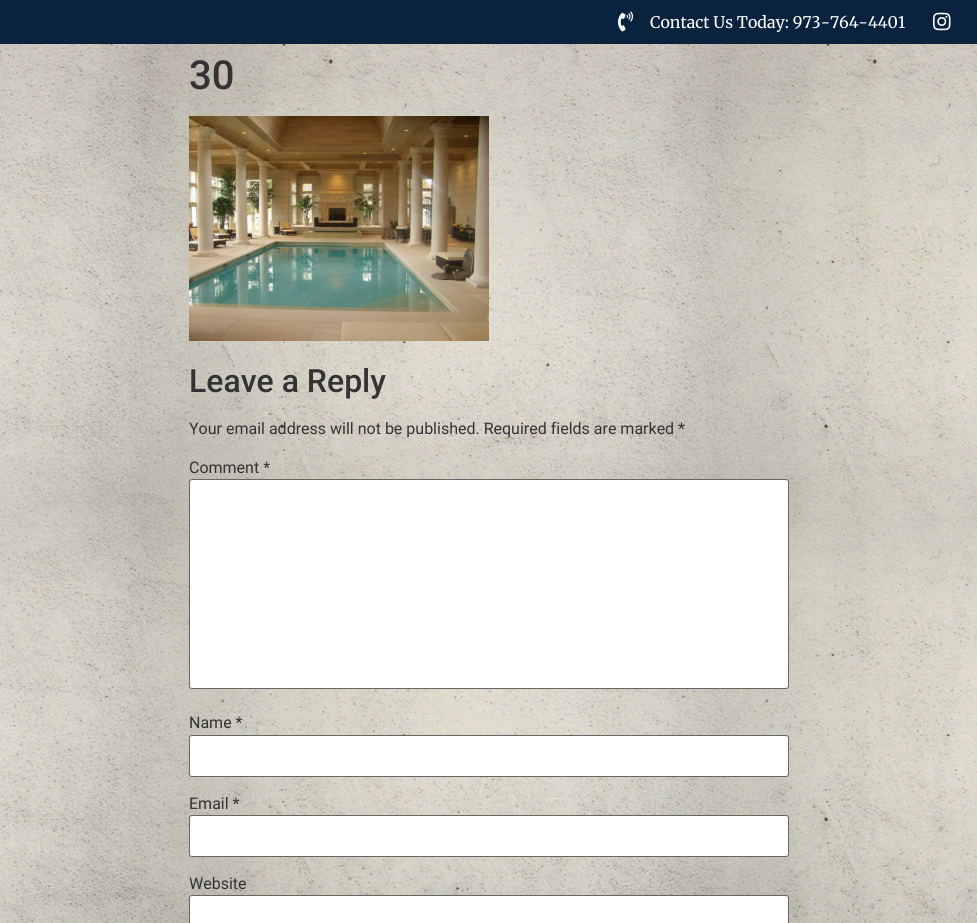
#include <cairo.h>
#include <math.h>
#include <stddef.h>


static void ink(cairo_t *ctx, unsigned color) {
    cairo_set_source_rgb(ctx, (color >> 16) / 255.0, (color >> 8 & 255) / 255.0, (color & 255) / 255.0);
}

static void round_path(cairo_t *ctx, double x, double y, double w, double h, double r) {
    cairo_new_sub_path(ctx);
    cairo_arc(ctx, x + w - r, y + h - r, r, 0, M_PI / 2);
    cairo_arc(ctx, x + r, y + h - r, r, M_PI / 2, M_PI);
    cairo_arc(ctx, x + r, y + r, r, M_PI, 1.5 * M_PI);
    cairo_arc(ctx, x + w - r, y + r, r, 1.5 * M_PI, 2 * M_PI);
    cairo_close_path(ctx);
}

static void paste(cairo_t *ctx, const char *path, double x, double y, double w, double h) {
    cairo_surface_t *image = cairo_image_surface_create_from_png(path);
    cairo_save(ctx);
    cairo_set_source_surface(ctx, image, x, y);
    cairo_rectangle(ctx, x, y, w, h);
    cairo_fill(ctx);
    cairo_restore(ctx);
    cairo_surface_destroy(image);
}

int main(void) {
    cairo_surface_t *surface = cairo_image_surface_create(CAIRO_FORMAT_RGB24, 977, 923);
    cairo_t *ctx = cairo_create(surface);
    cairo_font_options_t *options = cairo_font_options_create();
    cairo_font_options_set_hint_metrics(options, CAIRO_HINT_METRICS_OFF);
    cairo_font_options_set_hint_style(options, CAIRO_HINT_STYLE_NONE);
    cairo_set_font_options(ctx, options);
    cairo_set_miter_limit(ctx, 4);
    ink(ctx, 0xFFFFFF);
    cairo_paint(ctx);
    paste(ctx, "media/1.png", 0, 44, 977, 879);
    ink(ctx, 0x09233E);
    cairo_rectangle(ctx, 0, 0, 977, 44);
    cairo_fill(ctx);
    paste(ctx, "media/2.png", 618, 11, 15, 21);
    cairo_select_font_face(ctx, "Merriweather", CAIRO_FONT_SLANT_NORMAL, CAIRO_FONT_WEIGHT_NORMAL);
    cairo_set_font_size(ctx, 16);
    ink(ctx, 0xFFFFFF);
    cairo_move_to(ctx, 650, 28);
    cairo_show_text(ctx, "Contact Us Today: 973-764-4401");
    paste(ctx, "media/3.png", 933, 12, 18, 19);
    cairo_select_font_face(ctx, "Roboto Medium", CAIRO_FONT_SLANT_NORMAL, CAIRO_FONT_WEIGHT_NORMAL);
    cairo_set_font_size(ctx, 40);
    ink(ctx, 0x333333);
    cairo_move_to(ctx, 189, 89);
    cairo_show_text(ctx, "30");
    paste(ctx, "media/4.png", 189, 116, 300, 225);
    cairo_set_font_size(ctx, 32);
    cairo_move_to(ctx, 189, 392);
    cairo_show_text(ctx, "Leave a Reply");
    cairo_select_font_face(ctx, "Roboto", CAIRO_FONT_SLANT_NORMAL, CAIRO_FONT_WEIGHT_NORMAL);
    cairo_set_font_size(ctx, 16);
    cairo_move_to(ctx, 189, 434);
    cairo_show_text(ctx, "Your email address will not be published. Required fields are marked *");
    cairo_move_to(ctx, 189, 473);
    cairo_show_text(ctx, "Comment *");
    ink(ctx, 0xFFFFFF);
    round_path(ctx, 189.5, 479.5, 599, 209, 2.5);
    cairo_fill_preserve(ctx);
    ink(ctx, 0x666666);
    cairo_set_line_width(ctx, 1);
    cairo_stroke(ctx);
    ink(ctx, 0x333333);
    cairo_move_to(ctx, 189, 728);
    cairo_show_text(ctx, "Name *");
    ink(ctx, 0xFFFFFF);
    round_path(ctx, 189.5, 735.5, 599, 41, 2.5);
    cairo_fill_preserve(ctx);
    ink(ctx, 0x666666);
    cairo_stroke(ctx);
    ink(ctx, 0x333333);
    cairo_move_to(ctx, 189, 809);
    cairo_show_text(ctx, "Email *");
    ink(ctx, 0xFFFFFF);
    round_path(ctx, 189.5, 815.5, 599, 41, 2.5);
    cairo_fill_preserve(ctx);
    ink(ctx, 0x666666);
    cairo_stroke(ctx);
    ink(ctx, 0x333333);
    cairo_move_to(ctx, 189, 889);
    cairo_show_text(ctx, "Website");
    ink(ctx, 0xFFFFFF);
    round_path(ctx, 189.5, 895.5, 599, 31, 2.5);
    cairo_fill_preserve(ctx);
    ink(ctx, 0x666666);
    cairo_stroke(ctx);
    cairo_surface_write_to_png(surface, "image.png");
    cairo_font_options_destroy(options);
    cairo_destroy(ctx);
    cairo_surface_destroy(surface);
    return 0;
}
